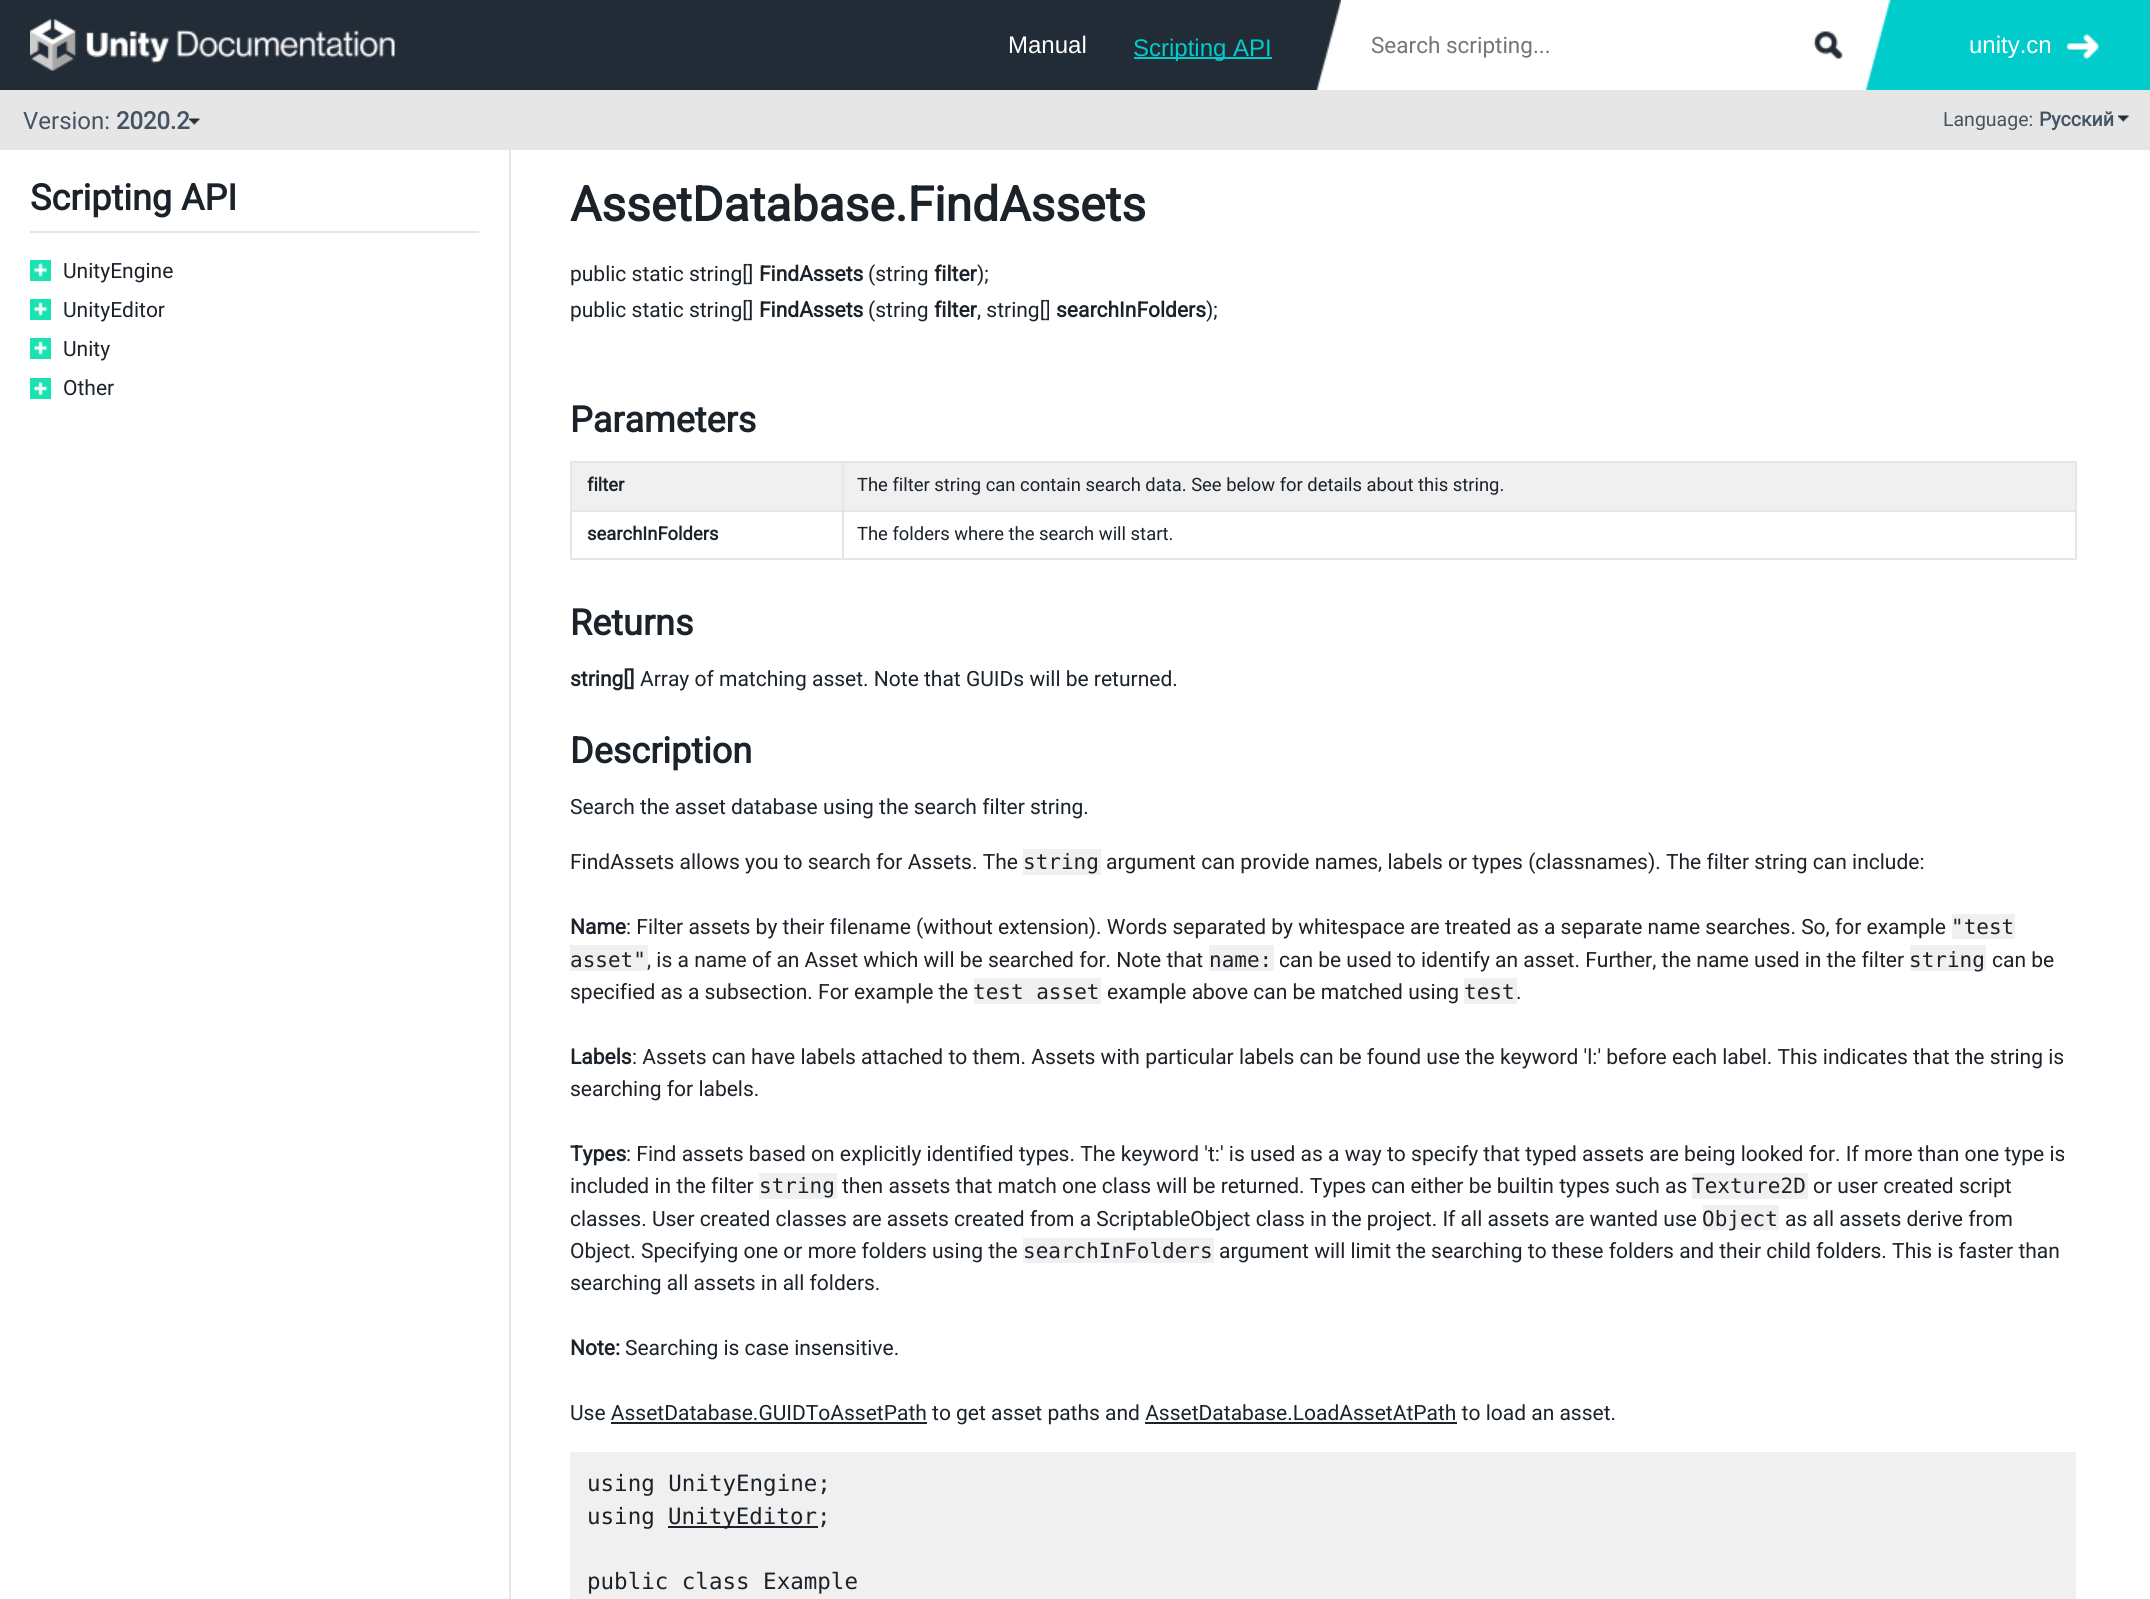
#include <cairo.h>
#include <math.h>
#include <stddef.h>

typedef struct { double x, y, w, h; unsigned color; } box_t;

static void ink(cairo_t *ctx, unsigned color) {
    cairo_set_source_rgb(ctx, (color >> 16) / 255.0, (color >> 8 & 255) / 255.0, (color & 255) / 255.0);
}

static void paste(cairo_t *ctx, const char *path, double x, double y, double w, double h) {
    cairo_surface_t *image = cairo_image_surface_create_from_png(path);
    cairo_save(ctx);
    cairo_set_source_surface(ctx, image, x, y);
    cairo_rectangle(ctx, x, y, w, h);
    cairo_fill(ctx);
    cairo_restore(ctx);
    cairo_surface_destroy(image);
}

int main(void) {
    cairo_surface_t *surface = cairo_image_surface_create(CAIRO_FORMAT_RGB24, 2150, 1599);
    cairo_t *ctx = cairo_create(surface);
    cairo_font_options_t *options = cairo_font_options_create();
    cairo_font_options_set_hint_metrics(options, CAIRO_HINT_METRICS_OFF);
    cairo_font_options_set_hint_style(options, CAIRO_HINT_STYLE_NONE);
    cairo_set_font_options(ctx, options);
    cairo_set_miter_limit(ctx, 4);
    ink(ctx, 0xFFFFFF);
    cairo_paint(ctx);
    ink(ctx, 0x222C37);
    cairo_rectangle(ctx, 0, 0, 1341, 90);
    cairo_fill(ctx);
    paste(ctx, "media/1.png", 30, 19, 365, 52);
    cairo_select_font_face(ctx, "Liberation Sans", CAIRO_FONT_SLANT_NORMAL, CAIRO_FONT_WEIGHT_NORMAL);
    cairo_set_font_size(ctx, 24);
    ink(ctx, 0xFFFFFF);
    cairo_move_to(ctx, 1008, 53);
    cairo_show_text(ctx, "Manual");
    ink(ctx, 0x00CCCC);
    cairo_move_to(ctx, 1133, 56);
    cairo_show_text(ctx, "Scripting API");
    cairo_rectangle(ctx, 1134, 57, 138, 2);
    cairo_fill(ctx);
    paste(ctx, "media/2.png", 1316, 0, 25, 90);
    cairo_select_font_face(ctx, "Roboto", CAIRO_FONT_SLANT_NORMAL, CAIRO_FONT_WEIGHT_NORMAL);
    cairo_set_font_size(ctx, 22.5);
    ink(ctx, 0x757575);
    cairo_move_to(ctx, 1371, 53);
    cairo_show_text(ctx, "Search scripting...");
    paste(ctx, "media/3.png", 1813, 31, 30, 28);
    ink(ctx, 0x00CCCC);
    cairo_rectangle(ctx, 1866, 0, 284, 90);
    cairo_fill(ctx);
    paste(ctx, "media/4.png", 1866, 0, 25, 90);
    paste(ctx, "media/5.png", 2066, 34, 33, 25);
    cairo_select_font_face(ctx, "Liberation Sans", CAIRO_FONT_SLANT_NORMAL, CAIRO_FONT_WEIGHT_NORMAL);
    cairo_set_font_size(ctx, 24);
    ink(ctx, 0xFFFFFF);
    cairo_move_to(ctx, 1969, 53);
    cairo_show_text(ctx, "unity.cn");
    ink(ctx, 0xE6E6E6);
    cairo_rectangle(ctx, 0, 90, 2150, 60);
    cairo_fill(ctx);
    cairo_select_font_face(ctx, "Roboto", CAIRO_FONT_SLANT_NORMAL, CAIRO_FONT_WEIGHT_NORMAL);
    ink(ctx, 0x455463);
    cairo_move_to(ctx, 23, 129);
    cairo_show_text(ctx, "Version:");
    cairo_select_font_face(ctx, "Roboto", CAIRO_FONT_SLANT_NORMAL, CAIRO_FONT_WEIGHT_BOLD);
    cairo_move_to(ctx, 116, 129);
    cairo_show_text(ctx, "2020.2");
    paste(ctx, "media/6.png", 189, 118, 11, 7);
    cairo_select_font_face(ctx, "Roboto", CAIRO_FONT_SLANT_NORMAL, CAIRO_FONT_WEIGHT_NORMAL);
    cairo_set_font_size(ctx, 19.5);
    cairo_move_to(ctx, 1943, 126);
    cairo_show_text(ctx, "Language:");
    cairo_select_font_face(ctx, "Roboto", CAIRO_FONT_SLANT_NORMAL, CAIRO_FONT_WEIGHT_BOLD);
    cairo_move_to(ctx, 2039, 126);
    cairo_show_text(ctx, "Русский");
    paste(ctx, "media/7.png", 2118, 115, 11, 7);
    ink(ctx, 0xE6E6E6);
    cairo_rectangle(ctx, 509, 150, 2, 1449);
    cairo_fill(ctx);
    cairo_rectangle(ctx, 30, 231, 449, 2);
    cairo_fill(ctx);
    cairo_set_font_size(ctx, 36);
    ink(ctx, 0x1B2229);
    cairo_move_to(ctx, 30, 210);
    cairo_show_text(ctx, "Scripting API");
    ink(ctx, 0x19E3B1);
    cairo_rectangle(ctx, 30, 260, 21, 21);
    cairo_fill(ctx);
    paste(ctx, "media/8.png", 34, 263, 13, 14);
    cairo_select_font_face(ctx, "Roboto", CAIRO_FONT_SLANT_NORMAL, CAIRO_FONT_WEIGHT_NORMAL);
    cairo_set_font_size(ctx, 21);
    ink(ctx, 0x1B2229);
    cairo_move_to(ctx, 63, 278);
    cairo_show_text(ctx, "UnityEngine");
    ink(ctx, 0x19E3B1);
    cairo_rectangle(ctx, 30, 299, 21, 21);
    cairo_fill(ctx);
    paste(ctx, "media/8.png", 34, 302, 13, 14);
    ink(ctx, 0x1B2229);
    cairo_move_to(ctx, 63, 317);
    cairo_show_text(ctx, "UnityEditor");
    ink(ctx, 0x19E3B1);
    cairo_rectangle(ctx, 30, 338, 21, 21);
    cairo_fill(ctx);
    paste(ctx, "media/8.png", 34, 341, 13, 14);
    ink(ctx, 0x1B2229);
    cairo_move_to(ctx, 63, 356);
    cairo_show_text(ctx, "Unity");
    ink(ctx, 0x19E3B1);
    cairo_rectangle(ctx, 30, 378, 21, 21);
    cairo_fill(ctx);
    paste(ctx, "media/9.png", 34, 381, 13, 15);
    ink(ctx, 0x1B2229);
    cairo_move_to(ctx, 63, 395);
    cairo_show_text(ctx, "Other");
    cairo_select_font_face(ctx, "Roboto", CAIRO_FONT_SLANT_NORMAL, CAIRO_FONT_WEIGHT_BOLD);
    cairo_set_font_size(ctx, 48);
    cairo_move_to(ctx, 570, 221);
    cairo_show_text(ctx, "AssetDatabase.FindAssets");
    cairo_select_font_face(ctx, "Roboto", CAIRO_FONT_SLANT_NORMAL, CAIRO_FONT_WEIGHT_NORMAL);
    cairo_set_font_size(ctx, 21);
    cairo_move_to(ctx, 570, 281);
    cairo_show_text(ctx, "public static string[]");
    cairo_select_font_face(ctx, "Roboto", CAIRO_FONT_SLANT_NORMAL, CAIRO_FONT_WEIGHT_BOLD);
    cairo_move_to(ctx, 759, 281);
    cairo_show_text(ctx, "FindAssets");
    cairo_select_font_face(ctx, "Roboto", CAIRO_FONT_SLANT_NORMAL, CAIRO_FONT_WEIGHT_NORMAL);
    cairo_move_to(ctx, 868, 281);
    cairo_show_text(ctx, "(string");
    cairo_select_font_face(ctx, "Roboto", CAIRO_FONT_SLANT_NORMAL, CAIRO_FONT_WEIGHT_BOLD);
    cairo_move_to(ctx, 934, 281);
    cairo_show_text(ctx, "filter");
    cairo_select_font_face(ctx, "Roboto", CAIRO_FONT_SLANT_NORMAL, CAIRO_FONT_WEIGHT_NORMAL);
    cairo_move_to(ctx, 977, 281);
    cairo_show_text(ctx, ");");
    cairo_move_to(ctx, 570, 317);
    cairo_show_text(ctx, "public static string[]");
    cairo_select_font_face(ctx, "Roboto", CAIRO_FONT_SLANT_NORMAL, CAIRO_FONT_WEIGHT_BOLD);
    cairo_move_to(ctx, 759, 317);
    cairo_show_text(ctx, "FindAssets");
    cairo_select_font_face(ctx, "Roboto", CAIRO_FONT_SLANT_NORMAL, CAIRO_FONT_WEIGHT_NORMAL);
    cairo_move_to(ctx, 868, 317);
    cairo_show_text(ctx, "(string");
    cairo_select_font_face(ctx, "Roboto", CAIRO_FONT_SLANT_NORMAL, CAIRO_FONT_WEIGHT_BOLD);
    cairo_move_to(ctx, 934, 317);
    cairo_show_text(ctx, "filter");
    cairo_select_font_face(ctx, "Roboto", CAIRO_FONT_SLANT_NORMAL, CAIRO_FONT_WEIGHT_NORMAL);
    cairo_move_to(ctx, 977, 317);
    cairo_show_text(ctx, ", string[]");
    cairo_select_font_face(ctx, "Roboto", CAIRO_FONT_SLANT_NORMAL, CAIRO_FONT_WEIGHT_BOLD);
    cairo_move_to(ctx, 1056, 317);
    cairo_show_text(ctx, "searchInFolders");
    cairo_select_font_face(ctx, "Roboto", CAIRO_FONT_SLANT_NORMAL, CAIRO_FONT_WEIGHT_NORMAL);
    cairo_move_to(ctx, 1206, 317);
    cairo_show_text(ctx, ");");
    cairo_select_font_face(ctx, "Roboto", CAIRO_FONT_SLANT_NORMAL, CAIRO_FONT_WEIGHT_BOLD);
    cairo_set_font_size(ctx, 36);
    cairo_move_to(ctx, 570, 432);
    cairo_show_text(ctx, "Parameters");
    {
        static const box_t items[] = {
            {572, 463, 1503, 47, 0xF0F0F0},
            {842, 461, 1234, 2, 0xE6E6E6},
            {842, 510, 1234, 2, 0xE6E6E6},
            {2075, 510, 2, 50, 0xE6E6E6},
            {842, 558, 1234, 2, 0xE6E6E6},
            {842, 510, 2, 50, 0xE6E6E6},
            {570, 510, 273, 2, 0xE6E6E6},
            {842, 461, 2, 51, 0xE6E6E6},
            {570, 461, 273, 2, 0xE6E6E6},
            {570, 558, 273, 2, 0xE6E6E6},
            {570, 510, 2, 50, 0xE6E6E6},
            {570, 461, 2, 51, 0xE6E6E6},
        };
        for (size_t i = 0; i < sizeof items / sizeof *items; i++) {
            ink(ctx, items[i].color);
            cairo_rectangle(ctx, items[i].x, items[i].y, items[i].w, items[i].h);
            cairo_fill(ctx);
        }
    }
    cairo_set_font_size(ctx, 18.4);
    ink(ctx, 0x1B2229);
    cairo_move_to(ctx, 587, 491);
    cairo_show_text(ctx, "filter");
    ink(ctx, 0xE6E6E6);
    cairo_rectangle(ctx, 2075, 461, 2, 51);
    cairo_fill(ctx);
    cairo_select_font_face(ctx, "Roboto", CAIRO_FONT_SLANT_NORMAL, CAIRO_FONT_WEIGHT_NORMAL);
    ink(ctx, 0x1B2229);
    cairo_move_to(ctx, 857, 491);
    cairo_show_text(ctx, "The filter string can contain search data. See below for details about this string.");
    cairo_select_font_face(ctx, "Roboto", CAIRO_FONT_SLANT_NORMAL, CAIRO_FONT_WEIGHT_BOLD);
    cairo_move_to(ctx, 587, 540);
    cairo_show_text(ctx, "searchInFolders");
    cairo_select_font_face(ctx, "Roboto", CAIRO_FONT_SLANT_NORMAL, CAIRO_FONT_WEIGHT_NORMAL);
    cairo_move_to(ctx, 857, 540);
    cairo_show_text(ctx, "The folders where the search will start.");
    cairo_select_font_face(ctx, "Roboto", CAIRO_FONT_SLANT_NORMAL, CAIRO_FONT_WEIGHT_BOLD);
    cairo_set_font_size(ctx, 36);
    cairo_move_to(ctx, 570, 635);
    cairo_show_text(ctx, "Returns");
    cairo_set_font_size(ctx, 21);
    cairo_move_to(ctx, 570, 686);
    cairo_show_text(ctx, "string[]");
    cairo_select_font_face(ctx, "Roboto", CAIRO_FONT_SLANT_NORMAL, CAIRO_FONT_WEIGHT_NORMAL);
    cairo_move_to(ctx, 640, 686);
    cairo_show_text(ctx, "Array of matching asset. Note that GUIDs will be returned.");
    cairo_select_font_face(ctx, "Roboto", CAIRO_FONT_SLANT_NORMAL, CAIRO_FONT_WEIGHT_BOLD);
    cairo_set_font_size(ctx, 36);
    cairo_move_to(ctx, 570, 763);
    cairo_show_text(ctx, "Description");
    cairo_select_font_face(ctx, "Roboto", CAIRO_FONT_SLANT_NORMAL, CAIRO_FONT_WEIGHT_NORMAL);
    cairo_set_font_size(ctx, 21);
    cairo_move_to(ctx, 570, 814);
    cairo_show_text(ctx, "Search the asset database using the search filter string.");
    cairo_move_to(ctx, 570, 869);
    cairo_show_text(ctx, "FindAssets allows you to search for Assets. The");
    ink(ctx, 0xF0F0F0);
    cairo_rectangle(ctx, 1023, 849, 78, 26);
    cairo_fill(ctx);
    cairo_select_font_face(ctx, "DejaVu Sans Mono", CAIRO_FONT_SLANT_NORMAL, CAIRO_FONT_WEIGHT_NORMAL);
    ink(ctx, 0x1B2229);
    cairo_move_to(ctx, 1023, 869);
    cairo_show_text(ctx, "string");
    cairo_select_font_face(ctx, "Roboto", CAIRO_FONT_SLANT_NORMAL, CAIRO_FONT_WEIGHT_NORMAL);
    cairo_move_to(ctx, 1106, 869);
    cairo_show_text(ctx, "argument can provide names, labels or types (classnames). The filter string can include:");
    cairo_select_font_face(ctx, "Roboto", CAIRO_FONT_SLANT_NORMAL, CAIRO_FONT_WEIGHT_BOLD);
    cairo_move_to(ctx, 570, 934);
    cairo_show_text(ctx, "Name");
    cairo_select_font_face(ctx, "Roboto", CAIRO_FONT_SLANT_NORMAL, CAIRO_FONT_WEIGHT_NORMAL);
    cairo_move_to(ctx, 626, 934);
    cairo_show_text(ctx, ": Filter assets by their filename (without extension). Words separated by whitespace are treated as a separate name searches. So, for example");
    ink(ctx, 0xF0F0F0);
    cairo_rectangle(ctx, 1952, 914, 63, 25);
    cairo_fill(ctx);
    cairo_select_font_face(ctx, "DejaVu Sans Mono", CAIRO_FONT_SLANT_NORMAL, CAIRO_FONT_WEIGHT_NORMAL);
    ink(ctx, 0x1B2229);
    cairo_move_to(ctx, 1951, 934);
    cairo_show_text(ctx, "\"test");
    ink(ctx, 0xF0F0F0);
    cairo_rectangle(ctx, 570, 945, 78, 26);
    cairo_fill(ctx);
    ink(ctx, 0x1B2229);
    cairo_move_to(ctx, 570, 967);
    cairo_show_text(ctx, "asset\"");
    cairo_select_font_face(ctx, "Roboto", CAIRO_FONT_SLANT_NORMAL, CAIRO_FONT_WEIGHT_NORMAL);
    cairo_move_to(ctx, 647, 967);
    cairo_show_text(ctx, ", is a name of an Asset which will be searched for. Note that");
    ink(ctx, 0xF0F0F0);
    cairo_rectangle(ctx, 1209, 945, 65, 26);
    cairo_fill(ctx);
    cairo_select_font_face(ctx, "DejaVu Sans Mono", CAIRO_FONT_SLANT_NORMAL, CAIRO_FONT_WEIGHT_NORMAL);
    ink(ctx, 0x1B2229);
    cairo_move_to(ctx, 1209, 967);
    cairo_show_text(ctx, "name:");
    cairo_select_font_face(ctx, "Roboto", CAIRO_FONT_SLANT_NORMAL, CAIRO_FONT_WEIGHT_NORMAL);
    cairo_move_to(ctx, 1279, 967);
    cairo_show_text(ctx, "can be used to identify an asset. Further, the name used in the filter");
    ink(ctx, 0xF0F0F0);
    cairo_rectangle(ctx, 1910, 945, 76, 26);
    cairo_fill(ctx);
    cairo_select_font_face(ctx, "DejaVu Sans Mono", CAIRO_FONT_SLANT_NORMAL, CAIRO_FONT_WEIGHT_NORMAL);
    ink(ctx, 0x1B2229);
    cairo_move_to(ctx, 1909, 967);
    cairo_show_text(ctx, "string");
    cairo_select_font_face(ctx, "Roboto", CAIRO_FONT_SLANT_NORMAL, CAIRO_FONT_WEIGHT_NORMAL);
    cairo_move_to(ctx, 1992, 967);
    cairo_show_text(ctx, "can be");
    cairo_move_to(ctx, 570, 999);
    cairo_show_text(ctx, "specified as a subsection. For example the");
    ink(ctx, 0xF0F0F0);
    cairo_rectangle(ctx, 974, 978, 127, 26);
    cairo_fill(ctx);
    cairo_select_font_face(ctx, "DejaVu Sans Mono", CAIRO_FONT_SLANT_NORMAL, CAIRO_FONT_WEIGHT_NORMAL);
    ink(ctx, 0x1B2229);
    cairo_move_to(ctx, 973, 999);
    cairo_show_text(ctx, "test asset");
    cairo_select_font_face(ctx, "Roboto", CAIRO_FONT_SLANT_NORMAL, CAIRO_FONT_WEIGHT_NORMAL);
    cairo_move_to(ctx, 1107, 999);
    cairo_show_text(ctx, "example above can be matched using");
    ink(ctx, 0xF0F0F0);
    cairo_rectangle(ctx, 1464, 978, 53, 26);
    cairo_fill(ctx);
    cairo_select_font_face(ctx, "DejaVu Sans Mono", CAIRO_FONT_SLANT_NORMAL, CAIRO_FONT_WEIGHT_NORMAL);
    ink(ctx, 0x1B2229);
    cairo_move_to(ctx, 1464, 999);
    cairo_show_text(ctx, "test");
    cairo_select_font_face(ctx, "Roboto", CAIRO_FONT_SLANT_NORMAL, CAIRO_FONT_WEIGHT_NORMAL);
    cairo_move_to(ctx, 1516, 999);
    cairo_show_text(ctx, ".");
    cairo_select_font_face(ctx, "Roboto", CAIRO_FONT_SLANT_NORMAL, CAIRO_FONT_WEIGHT_BOLD);
    cairo_move_to(ctx, 570, 1064);
    cairo_show_text(ctx, "Labels");
    cairo_select_font_face(ctx, "Roboto", CAIRO_FONT_SLANT_NORMAL, CAIRO_FONT_WEIGHT_NORMAL);
    cairo_move_to(ctx, 632, 1064);
    cairo_show_text(ctx, ": Assets can have labels attached to them. Assets with particular labels can be found use the keyword 'l:' before each label. This indicates that the string is");
    cairo_move_to(ctx, 570, 1096);
    cairo_show_text(ctx, "searching for labels.");
    cairo_select_font_face(ctx, "Roboto", CAIRO_FONT_SLANT_NORMAL, CAIRO_FONT_WEIGHT_BOLD);
    cairo_move_to(ctx, 570, 1161);
    cairo_show_text(ctx, "Types");
    cairo_select_font_face(ctx, "Roboto", CAIRO_FONT_SLANT_NORMAL, CAIRO_FONT_WEIGHT_NORMAL);
    cairo_move_to(ctx, 626, 1161);
    cairo_show_text(ctx, ": Find assets based on explicitly identified types. The keyword 't:' is used as a way to specify that typed assets are being looked for. If more than one type is");
    cairo_move_to(ctx, 570, 1193);
    cairo_show_text(ctx, "included in the filter");
    ink(ctx, 0xF0F0F0);
    cairo_rectangle(ctx, 759, 1173, 78, 26);
    cairo_fill(ctx);
    cairo_select_font_face(ctx, "DejaVu Sans Mono", CAIRO_FONT_SLANT_NORMAL, CAIRO_FONT_WEIGHT_NORMAL);
    ink(ctx, 0x1B2229);
    cairo_move_to(ctx, 759, 1193);
    cairo_show_text(ctx, "string");
    cairo_select_font_face(ctx, "Roboto", CAIRO_FONT_SLANT_NORMAL, CAIRO_FONT_WEIGHT_NORMAL);
    cairo_move_to(ctx, 842, 1193);
    cairo_show_text(ctx, "then assets that match one class will be returned. Types can either be builtin types such as");
    ink(ctx, 0xF0F0F0);
    cairo_rectangle(ctx, 1692, 1173, 116, 26);
    cairo_fill(ctx);
    cairo_select_font_face(ctx, "DejaVu Sans Mono", CAIRO_FONT_SLANT_NORMAL, CAIRO_FONT_WEIGHT_NORMAL);
    ink(ctx, 0x1B2229);
    cairo_move_to(ctx, 1692, 1193);
    cairo_show_text(ctx, "Texture2D");
    cairo_select_font_face(ctx, "Roboto", CAIRO_FONT_SLANT_NORMAL, CAIRO_FONT_WEIGHT_NORMAL);
    cairo_move_to(ctx, 1813, 1193);
    cairo_show_text(ctx, "or user created script");
    cairo_move_to(ctx, 570, 1226);
    cairo_show_text(ctx, "classes. User created classes are assets created from a ScriptableObject class in the project. If all assets are wanted use");
    ink(ctx, 0xF0F0F0);
    cairo_rectangle(ctx, 1703, 1205, 76, 25);
    cairo_fill(ctx);
    cairo_select_font_face(ctx, "DejaVu Sans Mono", CAIRO_FONT_SLANT_NORMAL, CAIRO_FONT_WEIGHT_NORMAL);
    ink(ctx, 0x1B2229);
    cairo_move_to(ctx, 1702, 1226);
    cairo_show_text(ctx, "Object");
    cairo_select_font_face(ctx, "Roboto", CAIRO_FONT_SLANT_NORMAL, CAIRO_FONT_WEIGHT_NORMAL);
    cairo_move_to(ctx, 1785, 1226);
    cairo_show_text(ctx, "as all assets derive from");
    cairo_move_to(ctx, 570, 1258);
    cairo_show_text(ctx, "Object. Specifying one or more folders using the");
    ink(ctx, 0xF0F0F0);
    cairo_rectangle(ctx, 1023, 1238, 191, 25);
    cairo_fill(ctx);
    cairo_select_font_face(ctx, "DejaVu Sans Mono", CAIRO_FONT_SLANT_NORMAL, CAIRO_FONT_WEIGHT_NORMAL);
    ink(ctx, 0x1B2229);
    cairo_move_to(ctx, 1023, 1258);
    cairo_show_text(ctx, "searchInFolders");
    cairo_select_font_face(ctx, "Roboto", CAIRO_FONT_SLANT_NORMAL, CAIRO_FONT_WEIGHT_NORMAL);
    cairo_move_to(ctx, 1219, 1258);
    cairo_show_text(ctx, "argument will limit the searching to these folders and their child folders. This is faster than");
    cairo_move_to(ctx, 570, 1290);
    cairo_show_text(ctx, "searching all assets in all folders.");
    cairo_select_font_face(ctx, "Roboto", CAIRO_FONT_SLANT_NORMAL, CAIRO_FONT_WEIGHT_BOLD);
    cairo_move_to(ctx, 570, 1355);
    cairo_show_text(ctx, "Note:");
    cairo_select_font_face(ctx, "Roboto", CAIRO_FONT_SLANT_NORMAL, CAIRO_FONT_WEIGHT_NORMAL);
    cairo_move_to(ctx, 625, 1355);
    cairo_show_text(ctx, "Searching is case insensitive.");
    cairo_move_to(ctx, 570, 1420);
    cairo_show_text(ctx, "Use AssetDatabase.GUIDToAssetPath to get asset paths and AssetDatabase.LoadAssetAtPath to load an asset.");
    {
        static const box_t items[] = {
            {611, 1422, 316, 2, 0x1B2229},
            {1145, 1422, 312, 2, 0x1B2229},
            {570, 1452, 1506, 147, 0xF0F0F0},
        };
        for (size_t i = 0; i < sizeof items / sizeof *items; i++) {
            ink(ctx, items[i].color);
            cairo_rectangle(ctx, items[i].x, items[i].y, items[i].w, items[i].h);
            cairo_fill(ctx);
        }
    }
    cairo_select_font_face(ctx, "DejaVu Sans Mono", CAIRO_FONT_SLANT_NORMAL, CAIRO_FONT_WEIGHT_NORMAL);
    cairo_set_font_size(ctx, 22.5);
    ink(ctx, 0x1B2229);
    cairo_move_to(ctx, 587, 1491);
    cairo_show_text(ctx, "using UnityEngine;");
    cairo_move_to(ctx, 587, 1524);
    cairo_show_text(ctx, "using");
    cairo_rectangle(ctx, 668, 1526, 150, 2);
    cairo_fill(ctx);
    cairo_move_to(ctx, 668, 1524);
    cairo_show_text(ctx, "UnityEditor;");
    cairo_move_to(ctx, 587, 1589);
    cairo_show_text(ctx, "public class Example");
    cairo_surface_write_to_png(surface, "image.png");
    cairo_font_options_destroy(options);
    cairo_destroy(ctx);
    cairo_surface_destroy(surface);
    return 0;
}
